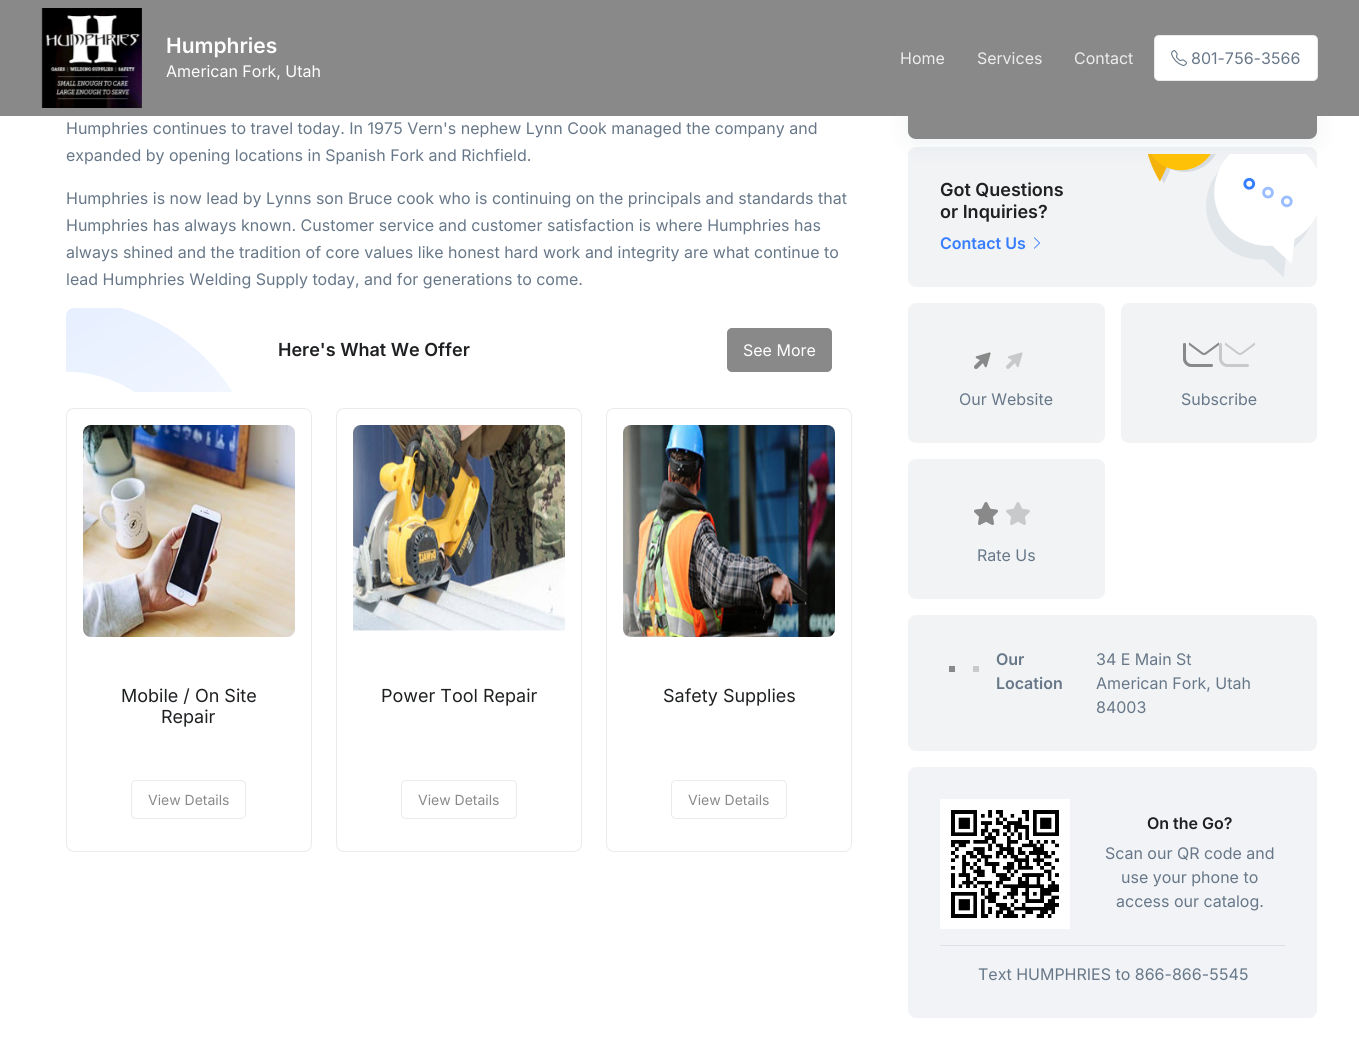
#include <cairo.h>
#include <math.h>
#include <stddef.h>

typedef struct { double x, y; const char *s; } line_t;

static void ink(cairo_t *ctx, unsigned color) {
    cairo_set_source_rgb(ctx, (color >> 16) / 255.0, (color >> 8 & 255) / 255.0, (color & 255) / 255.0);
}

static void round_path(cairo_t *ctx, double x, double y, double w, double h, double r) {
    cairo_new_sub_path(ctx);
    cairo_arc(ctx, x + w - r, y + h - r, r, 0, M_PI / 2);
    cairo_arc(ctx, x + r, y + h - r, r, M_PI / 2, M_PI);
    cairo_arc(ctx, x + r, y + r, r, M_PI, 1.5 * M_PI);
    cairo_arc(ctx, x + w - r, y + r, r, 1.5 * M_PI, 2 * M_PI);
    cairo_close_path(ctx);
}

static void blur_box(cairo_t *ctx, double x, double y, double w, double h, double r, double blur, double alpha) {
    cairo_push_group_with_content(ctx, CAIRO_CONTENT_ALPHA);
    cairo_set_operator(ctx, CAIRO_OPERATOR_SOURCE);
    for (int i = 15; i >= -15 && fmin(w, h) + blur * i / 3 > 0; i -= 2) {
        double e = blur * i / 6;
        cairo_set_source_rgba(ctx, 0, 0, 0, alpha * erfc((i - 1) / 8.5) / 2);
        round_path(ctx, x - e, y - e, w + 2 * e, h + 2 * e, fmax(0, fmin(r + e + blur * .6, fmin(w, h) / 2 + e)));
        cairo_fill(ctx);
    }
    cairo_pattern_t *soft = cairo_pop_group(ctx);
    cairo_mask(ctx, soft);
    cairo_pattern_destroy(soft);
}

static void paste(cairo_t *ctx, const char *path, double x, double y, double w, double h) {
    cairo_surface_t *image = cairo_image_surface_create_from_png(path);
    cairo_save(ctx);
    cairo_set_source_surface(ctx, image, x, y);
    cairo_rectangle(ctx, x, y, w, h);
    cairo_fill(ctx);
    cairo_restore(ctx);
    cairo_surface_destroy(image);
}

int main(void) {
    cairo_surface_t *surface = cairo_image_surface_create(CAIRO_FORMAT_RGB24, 1359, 1064);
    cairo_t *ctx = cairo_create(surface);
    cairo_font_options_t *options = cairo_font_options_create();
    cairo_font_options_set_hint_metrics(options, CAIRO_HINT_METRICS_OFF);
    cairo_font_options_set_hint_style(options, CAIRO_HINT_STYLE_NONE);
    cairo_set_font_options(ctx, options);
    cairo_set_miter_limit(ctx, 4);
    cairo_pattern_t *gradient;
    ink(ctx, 0xFFFFFF);
    cairo_paint(ctx);
    ink(ctx, 0x8C98A4);
    blur_box(ctx, 908, -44, 409, 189, 8, 12, 0.12);
    ink(ctx, 0x898989);
    round_path(ctx, 908, -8, 409, 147, 8);
    cairo_fill(ctx);
    cairo_rectangle(ctx, 0, 0, 1359, 116);
    cairo_fill(ctx);
    paste(ctx, "media/1.png", 41, 8, 101, 100);
    cairo_select_font_face(ctx, "Inter SemiBold", CAIRO_FONT_SLANT_NORMAL, CAIRO_FONT_WEIGHT_NORMAL);
    cairo_set_font_size(ctx, 21);
    ink(ctx, 0xFFFFFF);
    cairo_move_to(ctx, 166, 53);
    cairo_show_text(ctx, "Humphries");
    cairo_select_font_face(ctx, "Inter", CAIRO_FONT_SLANT_NORMAL, CAIRO_FONT_WEIGHT_NORMAL);
    cairo_set_font_size(ctx, 16);
    cairo_move_to(ctx, 166, 77);
    cairo_show_text(ctx, "American Fork, Utah");
    ink(ctx, 0xEDEDED);
    {
        static const line_t items[] = {
            {900, 64, "Home"},
            {977, 64, "Services"},
            {1074, 64, "Contact"},
        };
        for (size_t i = 0; i < sizeof items / sizeof *items; i++) {
            cairo_move_to(ctx, items[i].x, items[i].y);
            cairo_show_text(ctx, items[i].s);
        }
    }
    ink(ctx, 0xFFFFFF);
    round_path(ctx, 1154, 35, 164, 46, 5);
    cairo_fill(ctx);
    round_path(ctx, 1154.5, 35.5, 163, 45, 4.5);
    cairo_set_source_rgba(ctx, 0.129, 0.196, 0.357, 0.1);
    cairo_set_line_width(ctx, 1);
    cairo_stroke(ctx);
    paste(ctx, "media/2.png", 1171, 50, 16, 16);
    ink(ctx, 0x677788);
    {
        static const line_t items[] = {
            {1191, 64, "801-756-3566"},
            {66, 134, "Humphries continues to travel today. In 1975 Vern's nephew Lynn Cook managed the company and"},
            {66, 161, "expanded by opening locations in Spanish Fork and Richfield."},
            {66, 204, "Humphries is now lead by Lynns son Bruce cook who is continuing on the principals and standards that"},
            {66, 231, "Humphries has always known. Customer service and customer satisfaction is where Humphries has"},
            {66, 258, "always shined and the tradition of core values like honest hard work and integrity are what continue to"},
            {66, 285, "lead Humphries Welding Supply today, and for generations to come."},
        };
        for (size_t i = 0; i < sizeof items / sizeof *items; i++) {
            cairo_move_to(ctx, items[i].x, items[i].y);
            cairo_show_text(ctx, items[i].s);
        }
    }
    cairo_save(ctx);
    round_path(ctx, 66, 308, 786, 84, 8);
    cairo_clip(ctx);
    cairo_new_path(ctx);
    cairo_move_to(ctx, 66, 336);
    cairo_curve_to(ctx, 155, 336, 227, 408, 227, 496.5);
    cairo_curve_to(ctx, 227, 585.5, 155, 657.5, 66, 657.5);
    gradient = cairo_pattern_create_linear(207, 642, 23, 325);
    cairo_pattern_add_color_stop_rgba(gradient, 0, 1, 1, 1, 1);
    cairo_pattern_add_color_stop_rgba(gradient, 1, 0.902, 0.937, 1, 1);
    cairo_set_source(ctx, gradient);
    cairo_pattern_destroy(gradient);
    cairo_set_line_width(ctx, 71.5);
    cairo_stroke(ctx);
    cairo_restore(ctx);
    cairo_select_font_face(ctx, "Inter SemiBold", CAIRO_FONT_SLANT_NORMAL, CAIRO_FONT_WEIGHT_NORMAL);
    cairo_set_font_size(ctx, 18);
    ink(ctx, 0x1E2022);
    cairo_move_to(ctx, 278, 356);
    cairo_show_text(ctx, "Here's What We Offer");
    ink(ctx, 0x898989);
    round_path(ctx, 727, 328, 105, 44, 5);
    cairo_fill(ctx);
    cairo_select_font_face(ctx, "Inter", CAIRO_FONT_SLANT_NORMAL, CAIRO_FONT_WEIGHT_NORMAL);
    cairo_set_font_size(ctx, 16);
    ink(ctx, 0xFFFFFF);
    cairo_move_to(ctx, 743, 356);
    cairo_show_text(ctx, "See More");
    round_path(ctx, 66.5, 408.5, 245, 443, 7.5);
    ink(ctx, 0xE9EBEF);
    cairo_stroke(ctx);
    paste(ctx, "media/3.png", 83, 425, 212, 212);
    cairo_set_font_size(ctx, 18);
    ink(ctx, 0x1E2022);
    cairo_move_to(ctx, 121, 702);
    cairo_show_text(ctx, "Mobile / On Site");
    cairo_move_to(ctx, 161, 723);
    cairo_show_text(ctx, "Repair");
    round_path(ctx, 131.5, 780.5, 114, 38, 4.5);
    ink(ctx, 0xE9EBEF);
    cairo_stroke(ctx);
    cairo_set_font_size(ctx, 14);
    ink(ctx, 0x898989);
    cairo_move_to(ctx, 148, 805);
    cairo_show_text(ctx, "View Details");
    round_path(ctx, 336.5, 408.5, 245, 443, 7.5);
    ink(ctx, 0xE9EBEF);
    cairo_stroke(ctx);
    paste(ctx, "media/4.png", 353, 425, 212, 206);
    cairo_set_font_size(ctx, 18);
    ink(ctx, 0x1E2022);
    cairo_move_to(ctx, 381, 702);
    cairo_show_text(ctx, "Power Tool Repair");
    round_path(ctx, 401.5, 780.5, 115, 38, 4.5);
    ink(ctx, 0xE9EBEF);
    cairo_stroke(ctx);
    cairo_set_font_size(ctx, 14);
    ink(ctx, 0x898989);
    cairo_move_to(ctx, 418, 805);
    cairo_show_text(ctx, "View Details");
    round_path(ctx, 606.5, 408.5, 245, 443, 7.5);
    ink(ctx, 0xE9EBEF);
    cairo_stroke(ctx);
    paste(ctx, "media/5.png", 623, 425, 212, 212);
    cairo_set_font_size(ctx, 18);
    ink(ctx, 0x1E2022);
    cairo_move_to(ctx, 663, 702);
    cairo_show_text(ctx, "Safety Supplies");
    round_path(ctx, 671.5, 780.5, 115, 38, 4.5);
    ink(ctx, 0xE9EBEF);
    cairo_stroke(ctx);
    cairo_set_font_size(ctx, 14);
    ink(ctx, 0x898989);
    cairo_move_to(ctx, 688, 805);
    cairo_show_text(ctx, "View Details");
    cairo_set_source_rgba(ctx, 0.443, 0.525, 0.616, 0.1);
    round_path(ctx, 908, 147, 409, 140, 8);
    cairo_fill(ctx);
    cairo_select_font_face(ctx, "Inter SemiBold", CAIRO_FONT_SLANT_NORMAL, CAIRO_FONT_WEIGHT_NORMAL);
    cairo_set_font_size(ctx, 18);
    ink(ctx, 0x1E2022);
    cairo_move_to(ctx, 940, 196);
    cairo_show_text(ctx, "Got Questions");
    cairo_move_to(ctx, 940, 218);
    cairo_show_text(ctx, "or Inquiries?");
    cairo_set_font_size(ctx, 16);
    ink(ctx, 0x377DFF);
    cairo_move_to(ctx, 940, 249);
    cairo_show_text(ctx, "Contact Us");
    paste(ctx, "media/6.png", 1034, 237, 6, 12);
    paste(ctx, "media/7.png", 1147, 154, 170, 123);
    ink(ctx, 0xF1F3F5);
    round_path(ctx, 908, 303, 197, 140, 8);
    cairo_fill(ctx);
    paste(ctx, "media/8.png", 974, 352, 17, 17);
    paste(ctx, "media/9.png", 974, 352, 49, 17);
    cairo_select_font_face(ctx, "Inter", CAIRO_FONT_SLANT_NORMAL, CAIRO_FONT_WEIGHT_NORMAL);
    ink(ctx, 0x677788);
    cairo_move_to(ctx, 959, 405);
    cairo_show_text(ctx, "Our Website");
    ink(ctx, 0xF1F3F5);
    round_path(ctx, 1121, 303, 196, 140, 8);
    cairo_fill(ctx);
    paste(ctx, "media/10.png", 1183, 342, 36, 25);
    paste(ctx, "media/11.png", 1183, 342, 72, 25);
    ink(ctx, 0x677788);
    cairo_move_to(ctx, 1181, 405);
    cairo_show_text(ctx, "Subscribe");
    ink(ctx, 0xF1F3F5);
    round_path(ctx, 908, 459, 197, 140, 8);
    cairo_fill(ctx);
    paste(ctx, "media/12.png", 974, 502, 24, 23);
    paste(ctx, "media/13.png", 974, 502, 56, 23);
    ink(ctx, 0x677788);
    cairo_move_to(ctx, 977, 561);
    cairo_show_text(ctx, "Rate Us");
    ink(ctx, 0xF1F3F5);
    round_path(ctx, 908, 615, 409, 136, 8);
    cairo_fill(ctx);
    ink(ctx, 0x898989);
    cairo_rectangle(ctx, 949, 666, 6, 6);
    cairo_fill(ctx);
    ink(ctx, 0xC7C9CA);
    cairo_rectangle(ctx, 973, 666, 6, 6);
    cairo_fill(ctx);
    cairo_select_font_face(ctx, "Inter SemiBold", CAIRO_FONT_SLANT_NORMAL, CAIRO_FONT_WEIGHT_NORMAL);
    ink(ctx, 0x677788);
    cairo_move_to(ctx, 996, 665);
    cairo_show_text(ctx, "Our");
    cairo_move_to(ctx, 996, 689);
    cairo_show_text(ctx, "Location");
    cairo_select_font_face(ctx, "Inter", CAIRO_FONT_SLANT_NORMAL, CAIRO_FONT_WEIGHT_NORMAL);
    {
        static const line_t items[] = {
            {1096, 665, "34 E Main St"},
            {1096, 689, "American Fork, Utah"},
            {1096, 713, "84003"},
        };
        for (size_t i = 0; i < sizeof items / sizeof *items; i++) {
            cairo_move_to(ctx, items[i].x, items[i].y);
            cairo_show_text(ctx, items[i].s);
        }
    }
    ink(ctx, 0xF1F3F6);
    round_path(ctx, 908, 767, 409, 251, 8);
    cairo_fill(ctx);
    paste(ctx, "media/14.png", 940, 799, 130, 130);
    cairo_select_font_face(ctx, "Inter SemiBold", CAIRO_FONT_SLANT_NORMAL, CAIRO_FONT_WEIGHT_NORMAL);
    ink(ctx, 0x1E2022);
    cairo_move_to(ctx, 1147, 829);
    cairo_show_text(ctx, "On the Go?");
    cairo_select_font_face(ctx, "Inter", CAIRO_FONT_SLANT_NORMAL, CAIRO_FONT_WEIGHT_NORMAL);
    ink(ctx, 0x677788);
    {
        static const line_t items[] = {
            {1105, 859, "Scan our QR code and"},
            {1121, 883, "use your phone to"},
            {1116, 907, "access our catalog."},
        };
        for (size_t i = 0; i < sizeof items / sizeof *items; i++) {
            cairo_move_to(ctx, items[i].x, items[i].y);
            cairo_show_text(ctx, items[i].s);
        }
    }
    ink(ctx, 0xDCE0E7);
    cairo_rectangle(ctx, 940, 945, 345, 1);
    cairo_fill(ctx);
    ink(ctx, 0x677788);
    cairo_move_to(ctx, 978, 980);
    cairo_show_text(ctx, "Text HUMPHRIES to 866-866-5545");
    cairo_surface_write_to_png(surface, "image.png");
    cairo_font_options_destroy(options);
    cairo_destroy(ctx);
    cairo_surface_destroy(surface);
    return 0;
}
